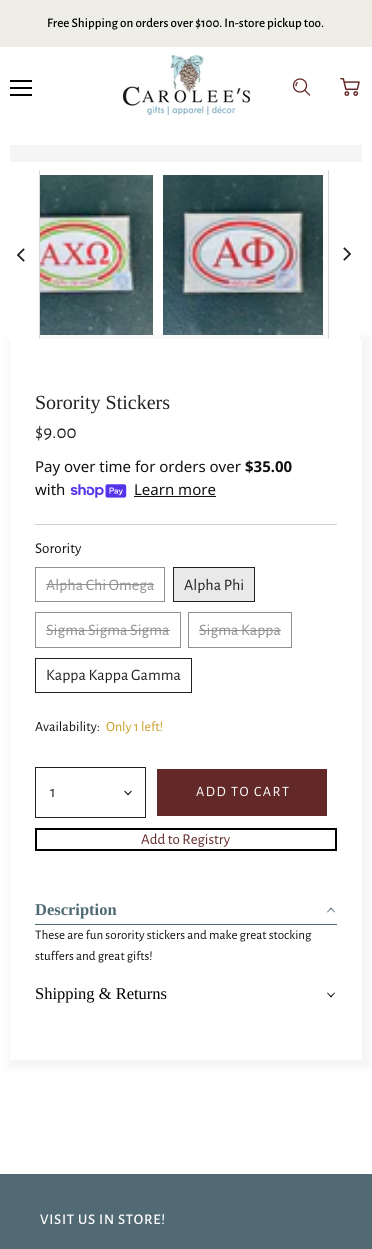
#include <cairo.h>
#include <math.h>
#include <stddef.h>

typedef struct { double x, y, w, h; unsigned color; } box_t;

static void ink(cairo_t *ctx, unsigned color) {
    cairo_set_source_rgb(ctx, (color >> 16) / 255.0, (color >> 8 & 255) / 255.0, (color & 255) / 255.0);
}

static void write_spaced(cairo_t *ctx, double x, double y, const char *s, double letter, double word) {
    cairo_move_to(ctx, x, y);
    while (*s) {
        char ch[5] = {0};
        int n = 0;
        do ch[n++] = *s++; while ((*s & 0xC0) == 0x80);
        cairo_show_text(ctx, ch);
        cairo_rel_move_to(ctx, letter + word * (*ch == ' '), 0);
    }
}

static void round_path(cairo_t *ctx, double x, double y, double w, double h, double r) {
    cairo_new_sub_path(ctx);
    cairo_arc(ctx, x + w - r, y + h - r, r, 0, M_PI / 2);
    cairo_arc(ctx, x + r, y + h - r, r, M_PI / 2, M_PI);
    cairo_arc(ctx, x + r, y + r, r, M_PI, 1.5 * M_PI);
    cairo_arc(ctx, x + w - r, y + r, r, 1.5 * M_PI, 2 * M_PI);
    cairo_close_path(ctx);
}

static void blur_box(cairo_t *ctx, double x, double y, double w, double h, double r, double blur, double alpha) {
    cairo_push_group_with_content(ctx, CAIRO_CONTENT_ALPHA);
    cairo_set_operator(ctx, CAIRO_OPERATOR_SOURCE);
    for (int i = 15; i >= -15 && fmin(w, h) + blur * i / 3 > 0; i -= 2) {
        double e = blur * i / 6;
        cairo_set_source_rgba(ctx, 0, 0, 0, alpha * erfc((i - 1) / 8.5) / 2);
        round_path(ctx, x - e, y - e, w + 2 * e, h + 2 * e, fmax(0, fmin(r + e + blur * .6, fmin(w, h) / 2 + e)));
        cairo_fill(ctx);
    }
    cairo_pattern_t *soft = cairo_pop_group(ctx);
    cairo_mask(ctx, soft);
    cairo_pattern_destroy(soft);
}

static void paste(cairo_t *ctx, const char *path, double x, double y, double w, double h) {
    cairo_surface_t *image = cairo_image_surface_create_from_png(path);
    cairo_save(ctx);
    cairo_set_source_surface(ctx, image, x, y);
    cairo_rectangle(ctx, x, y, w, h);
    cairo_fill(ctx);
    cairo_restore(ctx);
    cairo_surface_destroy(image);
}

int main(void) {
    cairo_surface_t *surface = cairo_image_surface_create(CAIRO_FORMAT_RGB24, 372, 1249);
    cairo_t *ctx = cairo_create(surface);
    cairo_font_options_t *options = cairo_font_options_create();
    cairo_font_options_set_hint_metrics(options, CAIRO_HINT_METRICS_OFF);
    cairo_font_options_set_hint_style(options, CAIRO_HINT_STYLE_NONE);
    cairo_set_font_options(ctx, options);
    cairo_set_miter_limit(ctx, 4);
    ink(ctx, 0xFFFFFF);
    cairo_paint(ctx);
    ink(ctx, 0xEEEEE7);
    cairo_rectangle(ctx, 0, 0, 372, 47);
    cairo_fill(ctx);
    cairo_select_font_face(ctx, "Alegreya Sans Medium", CAIRO_FONT_SLANT_NORMAL, CAIRO_FONT_WEIGHT_NORMAL);
    cairo_set_font_size(ctx, 13.1);
    ink(ctx, 0x000000);
    cairo_move_to(ctx, 47, 27);
    cairo_show_text(ctx, "Free Shipping on orders over $100. In-store pickup too.");
    {
        static const box_t items[] = {
            {10, 80, 22, 2, 0x000000},
            {10, 87, 22, 2, 0x000000},
            {10, 94, 22, 2, 0x000000},
        };
        for (size_t i = 0; i < sizeof items / sizeof *items; i++) {
            ink(ctx, items[i].color);
            cairo_rectangle(ctx, items[i].x, items[i].y, items[i].w, items[i].h);
            cairo_fill(ctx);
        }
    }
    paste(ctx, "media/1.png", 123, 55, 127, 60);
    paste(ctx, "media/2.png", 292, 78, 19, 18);
    paste(ctx, "media/3.png", 340, 78, 20, 18);
    ink(ctx, 0xF5F5F5);
    cairo_rectangle(ctx, 10, 145, 352, 17);
    cairo_fill(ctx);
    cairo_save(ctx);
    cairo_set_fill_rule(ctx, CAIRO_FILL_RULE_EVEN_ODD);
    cairo_new_path(ctx);
    cairo_move_to(ctx, 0, 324);
    cairo_line_to(ctx, 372, 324);
    cairo_line_to(ctx, 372, 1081);
    cairo_line_to(ctx, 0, 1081);
    cairo_close_path(ctx);
    cairo_move_to(ctx, 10, 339);
    cairo_line_to(ctx, 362, 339);
    cairo_line_to(ctx, 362, 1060);
    cairo_line_to(ctx, 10, 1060);
    cairo_close_path(ctx);
    cairo_clip(ctx);
    ink(ctx, 0xF4F4F4);
    blur_box(ctx, 8, 337, 362, 731, 0, 4, 1);
    cairo_restore(ctx);
    ink(ctx, 0xFFFFFF);
    cairo_rectangle(ctx, 8, 334, 31, 5);
    cairo_fill(ctx);
    ink(ctx, 0xD9D9D9);
    cairo_rectangle(ctx, 39, 170, 1, 169);
    cairo_fill(ctx);
    cairo_new_path(ctx);
    cairo_move_to(ctx, 18, 255);
    cairo_line_to(ctx, 23.5, 260.5);
    cairo_move_to(ctx, 18, 255);
    cairo_line_to(ctx, 23.5, 249.5);
    ink(ctx, 0x212121);
    cairo_set_line_width(ctx, 1.8);
    cairo_set_line_cap(ctx, CAIRO_LINE_CAP_SQUARE);
    cairo_stroke(ctx);
    paste(ctx, "media/4.png", 40, 175, 113, 160);
    paste(ctx, "media/5.png", 163, 175, 160, 160);
    ink(ctx, 0xFFFFFF);
    cairo_rectangle(ctx, 329, 334, 31, 5);
    cairo_fill(ctx);
    ink(ctx, 0xD9D9D9);
    cairo_rectangle(ctx, 328, 170, 1, 169);
    cairo_fill(ctx);
    cairo_new_path(ctx);
    cairo_move_to(ctx, 350, 254);
    cairo_line_to(ctx, 344.5, 248.5);
    cairo_move_to(ctx, 350, 254);
    cairo_line_to(ctx, 344.5, 259.5);
    ink(ctx, 0x212121);
    cairo_stroke(ctx);
    cairo_select_font_face(ctx, "Liberation Serif", CAIRO_FONT_SLANT_NORMAL, CAIRO_FONT_WEIGHT_NORMAL);
    cairo_set_font_size(ctx, 20);
    cairo_move_to(ctx, 35, 409);
    cairo_show_text(ctx, "Sorority Stickers");
    ink(ctx, 0xCECECE);
    cairo_rectangle(ctx, 35, 524, 302, 1);
    cairo_fill(ctx);
    cairo_select_font_face(ctx, "Alegreya Sans", CAIRO_FONT_SLANT_NORMAL, CAIRO_FONT_WEIGHT_NORMAL);
    cairo_set_font_size(ctx, 19);
    ink(ctx, 0x212121);
    cairo_move_to(ctx, 35, 438);
    cairo_show_text(ctx, "$9.00");
    cairo_select_font_face(ctx, "Noto Sans", CAIRO_FONT_SLANT_NORMAL, CAIRO_FONT_WEIGHT_NORMAL);
    cairo_set_font_size(ctx, 15);
    ink(ctx, 0x111111);
    cairo_move_to(ctx, 35, 472);
    cairo_show_text(ctx, "Pay over time for orders over");
    cairo_select_font_face(ctx, "Noto Sans", CAIRO_FONT_SLANT_NORMAL, CAIRO_FONT_WEIGHT_BOLD);
    cairo_move_to(ctx, 245, 472);
    cairo_show_text(ctx, "$35.00");
    cairo_select_font_face(ctx, "Noto Sans", CAIRO_FONT_SLANT_NORMAL, CAIRO_FONT_WEIGHT_NORMAL);
    cairo_move_to(ctx, 35, 495);
    cairo_show_text(ctx, "with");
    paste(ctx, "media/6.png", 70, 484, 57, 14);
    cairo_move_to(ctx, 134, 495);
    cairo_show_text(ctx, "Learn more");
    cairo_rectangle(ctx, 134, 496, 82, 1);
    cairo_fill(ctx);
    cairo_select_font_face(ctx, "Alegreya Sans", CAIRO_FONT_SLANT_NORMAL, CAIRO_FONT_WEIGHT_NORMAL);
    cairo_move_to(ctx, 35, 553);
    cairo_show_text(ctx, "Sorority");
    cairo_rectangle(ctx, 35.5, 567.5, 129, 34);
    ink(ctx, 0x909090);
    cairo_set_line_width(ctx, 1);
    cairo_set_line_cap(ctx, CAIRO_LINE_CAP_BUTT);
    cairo_stroke(ctx);
    cairo_set_font_size(ctx, 16);
    cairo_move_to(ctx, 46, 590);
    cairo_show_text(ctx, "Alpha Chi Omega");
    cairo_rectangle(ctx, 46, 584, 108, 1);
    cairo_fill(ctx);
    ink(ctx, 0xE9E9E9);
    cairo_rectangle(ctx, 173.5, 567.5, 81, 34);
    cairo_fill_preserve(ctx);
    ink(ctx, 0x212121);
    cairo_stroke(ctx);
    cairo_move_to(ctx, 184, 590);
    cairo_show_text(ctx, "Alpha Phi");
    cairo_rectangle(ctx, 35.5, 612.5, 145, 35);
    ink(ctx, 0x909090);
    cairo_stroke(ctx);
    cairo_move_to(ctx, 46, 635);
    cairo_show_text(ctx, "Sigma Sigma Sigma");
    cairo_rectangle(ctx, 46, 630, 124, 1);
    cairo_fill(ctx);
    cairo_rectangle(ctx, 188.5, 612.5, 103, 35);
    cairo_stroke(ctx);
    cairo_move_to(ctx, 199, 635);
    cairo_show_text(ctx, "Sigma Kappa");
    cairo_rectangle(ctx, 199, 630, 82, 1);
    cairo_fill(ctx);
    cairo_rectangle(ctx, 35.5, 658.5, 156, 34);
    ink(ctx, 0x212121);
    cairo_stroke(ctx);
    cairo_move_to(ctx, 46, 680);
    cairo_show_text(ctx, "Kappa Kappa Gamma");
    cairo_set_font_size(ctx, 14);
    ink(ctx, 0x111111);
    cairo_move_to(ctx, 35, 731);
    cairo_show_text(ctx, "Availability:");
    ink(ctx, 0xCB9C22);
    cairo_move_to(ctx, 106, 731);
    cairo_show_text(ctx, "Only 1 left!");
    cairo_rectangle(ctx, 35.5, 767.5, 110, 50);
    ink(ctx, 0x212121);
    cairo_stroke(ctx);
    cairo_set_font_size(ctx, 16);
    cairo_move_to(ctx, 50, 797);
    cairo_show_text(ctx, "1");
    paste(ctx, "media/7.png", 124, 790, 8, 6);
    ink(ctx, 0x632929);
    cairo_rectangle(ctx, 157, 769, 170, 47);
    cairo_fill(ctx);
    cairo_set_font_size(ctx, 14.25);
    ink(ctx, 0xFFFFFF);
    write_spaced(ctx, 196, 796, "ADD TO CART", 1.5, 0);
    cairo_rectangle(ctx, 36, 829, 300, 21);
    ink(ctx, 0x000000);
    cairo_set_line_width(ctx, 2);
    cairo_stroke(ctx);
    cairo_set_font_size(ctx, 15);
    ink(ctx, 0x632929);
    cairo_move_to(ctx, 141, 844);
    cairo_show_text(ctx, "Add to Registry");
    ink(ctx, 0x506A74);
    cairo_rectangle(ctx, 35, 924, 302, 1);
    cairo_fill(ctx);
    cairo_select_font_face(ctx, "Liberation Serif", CAIRO_FONT_SLANT_NORMAL, CAIRO_FONT_WEIGHT_BOLD);
    cairo_set_font_size(ctx, 16.5);
    cairo_move_to(ctx, 35, 915);
    cairo_show_text(ctx, "Description");
    cairo_new_path(ctx);
    cairo_move_to(ctx, 327.5, 912.5);
    cairo_line_to(ctx, 327, 912);
    cairo_line_to(ctx, 331, 907.5);
    cairo_line_to(ctx, 331.5, 908.5);
    cairo_close_path(ctx);
    cairo_fill(ctx);
    cairo_new_path(ctx);
    cairo_move_to(ctx, 334.5, 912.5);
    cairo_line_to(ctx, 330.5, 908.5);
    cairo_line_to(ctx, 331, 907.5);
    cairo_line_to(ctx, 335, 912);
    cairo_close_path(ctx);
    cairo_fill(ctx);
    cairo_select_font_face(ctx, "Alegreya Sans", CAIRO_FONT_SLANT_NORMAL, CAIRO_FONT_WEIGHT_NORMAL);
    cairo_set_font_size(ctx, 13.1);
    ink(ctx, 0x111111);
    cairo_move_to(ctx, 35, 939);
    cairo_show_text(ctx, "These are fun sorority stickers and make great stocking");
    cairo_move_to(ctx, 35, 960);
    cairo_show_text(ctx, "stuffers and great gifts!");
    cairo_select_font_face(ctx, "Liberation Serif", CAIRO_FONT_SLANT_NORMAL, CAIRO_FONT_WEIGHT_NORMAL);
    cairo_set_font_size(ctx, 16.5);
    ink(ctx, 0x000000);
    cairo_move_to(ctx, 35, 999);
    cairo_show_text(ctx, "Shipping & Returns");
    cairo_new_path(ctx);
    cairo_move_to(ctx, 334.5, 992.5);
    cairo_line_to(ctx, 335, 993);
    cairo_line_to(ctx, 331, 997.5);
    cairo_line_to(ctx, 330.5, 996.5);
    cairo_close_path(ctx);
    cairo_fill(ctx);
    cairo_new_path(ctx);
    cairo_move_to(ctx, 327.5, 992.5);
    cairo_line_to(ctx, 331.5, 996.5);
    cairo_line_to(ctx, 331, 997.5);
    cairo_line_to(ctx, 327, 993);
    cairo_close_path(ctx);
    cairo_fill(ctx);
    ink(ctx, 0x516A74);
    cairo_rectangle(ctx, 0, 1174, 372, 75);
    cairo_fill(ctx);
    cairo_select_font_face(ctx, "Alegreya Sans Medium", CAIRO_FONT_SLANT_NORMAL, CAIRO_FONT_WEIGHT_NORMAL);
    cairo_set_font_size(ctx, 14.75);
    ink(ctx, 0xFFFFFF);
    write_spaced(ctx, 40, 1224, "VISIT US IN STORE!", 0.75, 0);
    cairo_surface_write_to_png(surface, "image.png");
    cairo_font_options_destroy(options);
    cairo_destroy(ctx);
    cairo_surface_destroy(surface);
    return 0;
}
